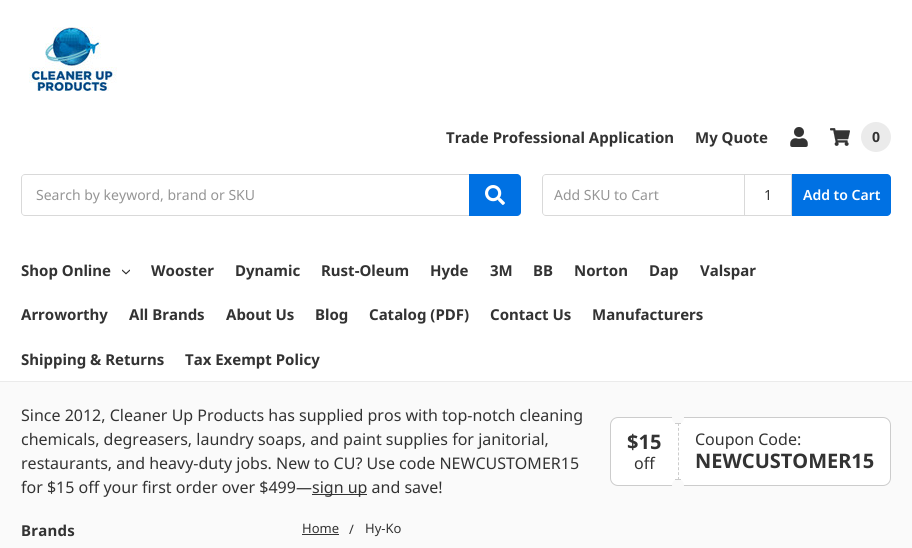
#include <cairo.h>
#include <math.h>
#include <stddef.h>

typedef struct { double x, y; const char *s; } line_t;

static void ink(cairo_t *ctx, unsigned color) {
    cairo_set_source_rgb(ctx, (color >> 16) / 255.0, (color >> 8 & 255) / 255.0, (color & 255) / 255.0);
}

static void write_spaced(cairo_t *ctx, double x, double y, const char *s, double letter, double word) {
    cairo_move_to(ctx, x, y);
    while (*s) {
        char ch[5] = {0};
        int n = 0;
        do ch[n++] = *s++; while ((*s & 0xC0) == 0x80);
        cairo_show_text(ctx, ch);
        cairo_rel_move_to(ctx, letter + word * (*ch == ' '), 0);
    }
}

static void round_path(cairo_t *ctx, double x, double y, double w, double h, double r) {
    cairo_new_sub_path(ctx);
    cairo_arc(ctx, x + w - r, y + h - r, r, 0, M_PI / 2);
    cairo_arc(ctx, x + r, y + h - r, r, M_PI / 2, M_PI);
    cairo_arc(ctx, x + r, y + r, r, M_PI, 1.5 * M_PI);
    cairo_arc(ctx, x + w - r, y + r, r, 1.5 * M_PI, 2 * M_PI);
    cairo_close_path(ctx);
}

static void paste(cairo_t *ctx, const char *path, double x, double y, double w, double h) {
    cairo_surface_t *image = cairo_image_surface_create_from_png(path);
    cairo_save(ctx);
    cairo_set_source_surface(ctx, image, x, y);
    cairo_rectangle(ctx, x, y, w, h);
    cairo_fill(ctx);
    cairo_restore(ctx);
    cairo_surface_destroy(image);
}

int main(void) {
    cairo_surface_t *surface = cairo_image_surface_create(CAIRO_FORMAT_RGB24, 912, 548);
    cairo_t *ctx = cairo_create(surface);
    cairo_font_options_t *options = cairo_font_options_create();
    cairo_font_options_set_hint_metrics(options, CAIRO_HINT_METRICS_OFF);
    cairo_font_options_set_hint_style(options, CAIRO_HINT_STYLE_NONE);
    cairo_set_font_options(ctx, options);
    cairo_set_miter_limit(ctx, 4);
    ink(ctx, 0xFAFAFA);
    cairo_paint(ctx);
    ink(ctx, 0xFFFFFF);
    cairo_rectangle(ctx, 0, 0, 912, 381);
    cairo_fill(ctx);
    ink(ctx, 0xEBEBEB);
    cairo_rectangle(ctx, 0, 381, 912, 1);
    cairo_fill(ctx);
    paste(ctx, "media/1.png", 29, 27, 88, 64);
    cairo_select_font_face(ctx, "Noto Sans", CAIRO_FONT_SLANT_NORMAL, CAIRO_FONT_WEIGHT_BOLD);
    cairo_set_font_size(ctx, 15);
    ink(ctx, 0x333333);
    cairo_move_to(ctx, 446, 143);
    cairo_show_text(ctx, "Trade Professional Application");
    cairo_move_to(ctx, 695, 143);
    cairo_show_text(ctx, "My Quote");
    paste(ctx, "media/2.png", 790, 127, 18, 20);
    paste(ctx, "media/3.png", 830, 128, 20, 18);
    ink(ctx, 0xEBEBEB);
    cairo_arc(ctx, 876, 137, 15, 0, 2 * M_PI);
    cairo_fill(ctx);
    cairo_set_font_size(ctx, 14);
    ink(ctx, 0x333333);
    cairo_move_to(ctx, 872, 142);
    cairo_show_text(ctx, "0");
    ink(ctx, 0xD9D9D9);
    cairo_set_fill_rule(ctx, CAIRO_FILL_RULE_EVEN_ODD);
    cairo_new_path(ctx);
    cairo_move_to(ctx, 25, 174);
    cairo_curve_to(ctx, 23, 174, 21, 176, 21, 178);
    cairo_line_to(ctx, 21, 212);
    cairo_curve_to(ctx, 21, 214, 23, 216, 25, 216);
    cairo_line_to(ctx, 517, 216);
    cairo_curve_to(ctx, 518, 216, 519, 216, 520, 215);
    cairo_line_to(ctx, 25, 215);
    cairo_curve_to(ctx, 23, 215, 22, 214, 22, 212);
    cairo_line_to(ctx, 22, 178);
    cairo_curve_to(ctx, 22, 176, 23, 175, 25, 175);
    cairo_line_to(ctx, 520, 175);
    cairo_line_to(ctx, 517, 174);
    cairo_close_path(ctx);
    cairo_move_to(ctx, 520, 175);
    cairo_line_to(ctx, 520, 215);
    cairo_curve_to(ctx, 521, 214, 521, 213, 521, 212);
    cairo_line_to(ctx, 521, 178);
    cairo_curve_to(ctx, 521, 177, 521, 176, 520, 175);
    cairo_close_path(ctx);
    cairo_fill(ctx);
    cairo_select_font_face(ctx, "Noto Sans", CAIRO_FONT_SLANT_NORMAL, CAIRO_FONT_WEIGHT_NORMAL);
    ink(ctx, 0x959595);
    cairo_move_to(ctx, 36, 200);
    cairo_show_text(ctx, "Search by keyword, brand or SKU");
    ink(ctx, 0x0071E3);
    cairo_new_path(ctx);
    cairo_move_to(ctx, 469, 174);
    cairo_line_to(ctx, 517, 174);
    cairo_curve_to(ctx, 519, 174, 521, 176, 521, 178);
    cairo_line_to(ctx, 521, 212);
    cairo_curve_to(ctx, 521, 214, 519, 216, 517, 216);
    cairo_line_to(ctx, 469, 216);
    cairo_close_path(ctx);
    cairo_fill(ctx);
    paste(ctx, "media/4.png", 485, 185, 20, 20);
    ink(ctx, 0xD9D9D9);
    cairo_new_path(ctx);
    cairo_move_to(ctx, 546, 174);
    cairo_line_to(ctx, 744, 174);
    cairo_line_to(ctx, 744, 216);
    cairo_line_to(ctx, 546, 216);
    cairo_curve_to(ctx, 544, 216, 542, 214, 542, 212);
    cairo_line_to(ctx, 542, 178);
    cairo_curve_to(ctx, 542, 176, 544, 174, 546, 174);
    cairo_close_path(ctx);
    cairo_move_to(ctx, 546, 175);
    cairo_line_to(ctx, 744, 175);
    cairo_line_to(ctx, 744, 215);
    cairo_line_to(ctx, 546, 215);
    cairo_curve_to(ctx, 544, 215, 543, 214, 543, 212);
    cairo_line_to(ctx, 543, 178);
    cairo_curve_to(ctx, 543, 176, 544, 175, 546, 175);
    cairo_close_path(ctx);
    cairo_fill(ctx);
    ink(ctx, 0x959595);
    cairo_move_to(ctx, 554, 200);
    cairo_show_text(ctx, "Add SKU to Cart");
    cairo_rectangle(ctx, 744.5, 174.5, 47, 41);
    ink(ctx, 0xD9D9D9);
    cairo_set_line_width(ctx, 1);
    cairo_stroke(ctx);
    ink(ctx, 0x333333);
    cairo_move_to(ctx, 764, 200);
    cairo_show_text(ctx, "1");
    ink(ctx, 0x0071E3);
    cairo_new_path(ctx);
    cairo_move_to(ctx, 792, 174);
    cairo_line_to(ctx, 887, 174);
    cairo_curve_to(ctx, 889, 174, 891, 176, 891, 178);
    cairo_line_to(ctx, 891, 212);
    cairo_curve_to(ctx, 891, 214, 889, 216, 887, 216);
    cairo_line_to(ctx, 792, 216);
    cairo_close_path(ctx);
    cairo_fill(ctx);
    cairo_select_font_face(ctx, "Noto Sans SemiBold", CAIRO_FONT_SLANT_NORMAL, CAIRO_FONT_WEIGHT_NORMAL);
    ink(ctx, 0xFFFFFF);
    cairo_move_to(ctx, 803, 200);
    cairo_show_text(ctx, "Add to Cart");
    cairo_select_font_face(ctx, "Noto Sans", CAIRO_FONT_SLANT_NORMAL, CAIRO_FONT_WEIGHT_BOLD);
    cairo_set_font_size(ctx, 15);
    ink(ctx, 0x333333);
    cairo_move_to(ctx, 21, 276);
    cairo_show_text(ctx, "Shop Online");
    paste(ctx, "media/5.png", 122, 269, 8, 6);
    {
        static const line_t items[] = {
            {151, 276, "Wooster"},
            {235, 276, "Dynamic"},
            {321, 276, "Rust-Oleum"},
            {430, 276, "Hyde"},
            {490, 276, "3M"},
            {533, 276, "BB"},
            {574, 276, "Norton"},
            {649, 276, "Dap"},
            {700, 276, "Valspar"},
            {21, 320, "Arroworthy"},
            {129, 320, "All Brands"},
            {226, 320, "About Us"},
            {315, 320, "Blog"},
            {369, 320, "Catalog (PDF)"},
            {490, 320, "Contact Us"},
            {592, 320, "Manufacturers"},
            {21, 365, "Shipping & Returns"},
            {185, 365, "Tax Exempt Policy"},
        };
        for (size_t i = 0; i < sizeof items / sizeof *items; i++) {
            cairo_move_to(ctx, items[i].x, items[i].y);
            cairo_show_text(ctx, items[i].s);
        }
    }
    cairo_select_font_face(ctx, "Noto Sans", CAIRO_FONT_SLANT_NORMAL, CAIRO_FONT_WEIGHT_NORMAL);
    cairo_set_font_size(ctx, 16);
    {
        static const line_t items[] = {
            {21, 421, "Since 2012, Cleaner Up Products has supplied pros with top-notch cleaning"},
            {21, 445, "chemicals, degreasers, laundry soaps, and paint supplies for janitorial,"},
            {21, 469, "restaurants, and heavy-duty jobs. New to CU? Use code NEWCUSTOMER15"},
            {21, 493, "for $15 off your first order over $499—"},
        };
        for (size_t i = 0; i < sizeof items / sizeof *items; i++) {
            cairo_move_to(ctx, items[i].x, items[i].y);
            cairo_show_text(ctx, items[i].s);
        }
    }
    cairo_rectangle(ctx, 312, 494, 55, 1);
    cairo_fill(ctx);
    cairo_move_to(ctx, 312, 493);
    cairo_show_text(ctx, "sign up and save!");
    ink(ctx, 0xFFFFFF);
    round_path(ctx, 610.5, 417.5, 280, 68, 7.5);
    cairo_fill_preserve(ctx);
    ink(ctx, 0xCCCCCC);
    cairo_stroke(ctx);
    cairo_new_path(ctx);
    cairo_move_to(ctx, 678.5, 418);
    cairo_line_to(ctx, 678.5, 485);
    cairo_set_dash(ctx, (double[]){3, 1.92}, 2, 0);
    cairo_stroke(ctx);
    ink(ctx, 0xFAFAFA);
    cairo_arc(ctx, 678, 418, 6, 0, 2 * M_PI);
    cairo_fill(ctx);
    ink(ctx, 0xCCCCCC);
    cairo_rectangle(ctx, 675, 423, 6, 1);
    cairo_fill(ctx);
    cairo_select_font_face(ctx, "Noto Sans", CAIRO_FONT_SLANT_NORMAL, CAIRO_FONT_WEIGHT_BOLD);
    cairo_set_font_size(ctx, 20);
    ink(ctx, 0x333333);
    cairo_move_to(ctx, 627, 449);
    cairo_show_text(ctx, "$15");
    cairo_select_font_face(ctx, "Noto Sans", CAIRO_FONT_SLANT_NORMAL, CAIRO_FONT_WEIGHT_NORMAL);
    cairo_set_font_size(ctx, 16);
    cairo_move_to(ctx, 634, 469);
    cairo_show_text(ctx, "off");
    ink(ctx, 0xFAFAFA);
    cairo_new_path(ctx);
    cairo_arc(ctx, 678, 485, 6, 0, 2 * M_PI);
    cairo_fill(ctx);
    ink(ctx, 0xCCCCCC);
    cairo_rectangle(ctx, 675, 479, 6, 1);
    cairo_fill(ctx);
    ink(ctx, 0x333333);
    cairo_move_to(ctx, 695, 445);
    cairo_show_text(ctx, "Coupon Code:");
    cairo_select_font_face(ctx, "Noto Sans", CAIRO_FONT_SLANT_NORMAL, CAIRO_FONT_WEIGHT_BOLD);
    cairo_set_font_size(ctx, 20);
    cairo_move_to(ctx, 695, 468);
    cairo_show_text(ctx, "NEWCUSTOMER15");
    cairo_set_font_size(ctx, 15);
    write_spaced(ctx, 21, 536, "Brands", 0.25, 0);
    cairo_select_font_face(ctx, "Noto Sans", CAIRO_FONT_SLANT_NORMAL, CAIRO_FONT_WEIGHT_NORMAL);
    cairo_set_font_size(ctx, 13);
    cairo_move_to(ctx, 302, 533);
    cairo_show_text(ctx, "Home");
    cairo_rectangle(ctx, 302, 534, 37, 1);
    cairo_fill(ctx);
    cairo_move_to(ctx, 349, 534);
    cairo_show_text(ctx, "/");
    cairo_move_to(ctx, 365, 533);
    cairo_show_text(ctx, "Hy-Ko");
    cairo_surface_write_to_png(surface, "image.png");
    cairo_font_options_destroy(options);
    cairo_destroy(ctx);
    cairo_surface_destroy(surface);
    return 0;
}
